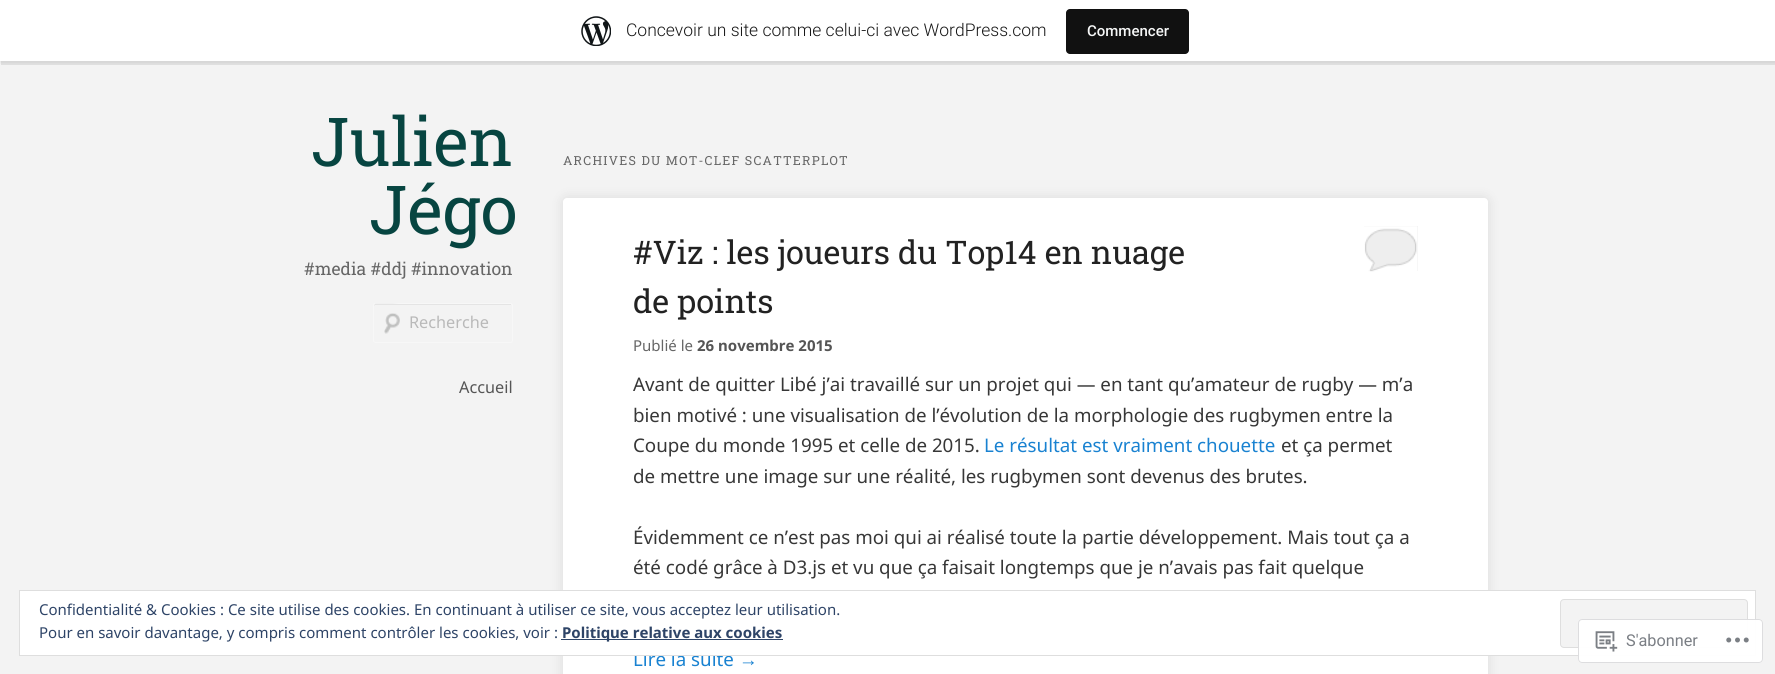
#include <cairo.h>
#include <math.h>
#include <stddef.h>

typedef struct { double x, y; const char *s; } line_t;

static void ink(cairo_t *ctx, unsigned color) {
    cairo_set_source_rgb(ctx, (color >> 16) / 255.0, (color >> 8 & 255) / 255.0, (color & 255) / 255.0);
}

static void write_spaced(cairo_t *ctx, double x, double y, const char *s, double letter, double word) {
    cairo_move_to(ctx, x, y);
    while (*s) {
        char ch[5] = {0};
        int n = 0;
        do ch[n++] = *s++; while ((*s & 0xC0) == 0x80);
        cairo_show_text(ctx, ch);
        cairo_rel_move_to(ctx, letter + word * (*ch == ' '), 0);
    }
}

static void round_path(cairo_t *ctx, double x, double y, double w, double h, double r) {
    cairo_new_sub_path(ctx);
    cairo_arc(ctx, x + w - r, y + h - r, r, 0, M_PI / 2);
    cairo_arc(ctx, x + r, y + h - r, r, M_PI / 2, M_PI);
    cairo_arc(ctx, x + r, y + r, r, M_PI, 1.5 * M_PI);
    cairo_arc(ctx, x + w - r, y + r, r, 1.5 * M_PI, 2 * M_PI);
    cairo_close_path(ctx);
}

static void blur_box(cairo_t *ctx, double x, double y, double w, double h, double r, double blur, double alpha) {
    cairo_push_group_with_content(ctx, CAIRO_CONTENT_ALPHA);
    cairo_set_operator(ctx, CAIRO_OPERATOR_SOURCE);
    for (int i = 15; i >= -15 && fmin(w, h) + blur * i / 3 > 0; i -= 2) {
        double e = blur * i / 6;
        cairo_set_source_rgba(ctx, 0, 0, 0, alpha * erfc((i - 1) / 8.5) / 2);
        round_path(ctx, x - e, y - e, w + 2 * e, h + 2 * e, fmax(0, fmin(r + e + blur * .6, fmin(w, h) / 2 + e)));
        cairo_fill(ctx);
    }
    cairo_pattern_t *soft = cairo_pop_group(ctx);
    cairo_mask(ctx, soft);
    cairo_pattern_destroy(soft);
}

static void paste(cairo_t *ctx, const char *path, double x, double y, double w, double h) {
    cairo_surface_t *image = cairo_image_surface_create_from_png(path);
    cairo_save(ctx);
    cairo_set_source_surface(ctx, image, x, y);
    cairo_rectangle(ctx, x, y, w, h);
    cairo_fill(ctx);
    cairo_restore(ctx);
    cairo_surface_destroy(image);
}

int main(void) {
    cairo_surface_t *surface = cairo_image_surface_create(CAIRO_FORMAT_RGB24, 1775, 674);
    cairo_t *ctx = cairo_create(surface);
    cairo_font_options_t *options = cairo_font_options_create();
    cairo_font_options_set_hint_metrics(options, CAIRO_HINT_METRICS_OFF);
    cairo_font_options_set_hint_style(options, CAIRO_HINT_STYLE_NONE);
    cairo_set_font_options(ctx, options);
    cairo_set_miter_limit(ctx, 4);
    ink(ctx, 0xF3F3F3);
    cairo_paint(ctx);
    ink(ctx, 0x000000);
    blur_box(ctx, 0, 1, 1775, 62, 0, 1, 0.05);
    cairo_set_source_rgba(ctx, 0, 0, 0, 0.08);
    cairo_new_path(ctx);
    cairo_move_to(ctx, 1, 61);
    cairo_line_to(ctx, 1, 65);
    cairo_line_to(ctx, 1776, 65);
    cairo_line_to(ctx, 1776, 4);
    cairo_line_to(ctx, 1775, 4);
    cairo_line_to(ctx, 1775, 61);
    cairo_close_path(ctx);
    cairo_fill(ctx);
    ink(ctx, 0xFFFFFF);
    cairo_rectangle(ctx, 0, 0, 1775, 61);
    cairo_fill(ctx);
    paste(ctx, "media/1.png", 581, 16, 30, 30);
    cairo_select_font_face(ctx, "Roboto Light", CAIRO_FONT_SLANT_NORMAL, CAIRO_FONT_WEIGHT_NORMAL);
    cairo_set_font_size(ctx, 17.5);
    ink(ctx, 0x171717);
    cairo_move_to(ctx, 626, 36);
    cairo_show_text(ctx, "Concevoir un site comme celui-ci avec WordPress.com");
    ink(ctx, 0x111111);
    round_path(ctx, 1066, 9, 123, 45, 4);
    cairo_fill(ctx);
    cairo_select_font_face(ctx, "Roboto Medium", CAIRO_FONT_SLANT_NORMAL, CAIRO_FONT_WEIGHT_NORMAL);
    cairo_set_font_size(ctx, 15);
    ink(ctx, 0xF6F7F7);
    cairo_move_to(ctx, 1087, 36);
    cairo_show_text(ctx, "Commencer");
    cairo_select_font_face(ctx, "Roboto Slab", CAIRO_FONT_SLANT_NORMAL, CAIRO_FONT_WEIGHT_NORMAL);
    cairo_set_font_size(ctx, 67.5);
    ink(ctx, 0x074541);
    cairo_move_to(ctx, 311, 166);
    cairo_show_text(ctx, "Julien");
    cairo_move_to(ctx, 369, 234);
    cairo_show_text(ctx, "Jégo");
    cairo_set_font_size(ctx, 17.5);
    ink(ctx, 0x666666);
    cairo_move_to(ctx, 304, 275);
    cairo_show_text(ctx, "#media #ddj #innovation");
    paste(ctx, "media/2.png", 384, 313, 16, 21);
    cairo_save(ctx);
    cairo_rectangle(ctx, 288, 303, 225, 40);
    cairo_clip(ctx);
    ink(ctx, 0xE4E4E4);
    cairo_new_path(ctx);
    cairo_move_to(ctx, 375, 305);
    cairo_line_to(ctx, 511, 305);
    cairo_line_to(ctx, 511, 306);
    cairo_line_to(ctx, 511, 304);
    cairo_line_to(ctx, 398, 304);
    cairo_curve_to(ctx, 397, 304, 374, 298, 374, 306);
    cairo_close_path(ctx);
    cairo_fill(ctx);
    cairo_restore(ctx);
    round_path(ctx, 373.5, 303.5, 139, 39, 2);
    cairo_set_source_rgba(ctx, 0.98, 0.98, 0.98, 0.6);
    cairo_set_line_width(ctx, 1);
    cairo_stroke(ctx);
    cairo_select_font_face(ctx, "Noto Sans", CAIRO_FONT_SLANT_NORMAL, CAIRO_FONT_WEIGHT_NORMAL);
    cairo_set_font_size(ctx, 16.25);
    ink(ctx, 0xB9B9B9);
    cairo_move_to(ctx, 409, 328);
    cairo_show_text(ctx, "Recherche");
    ink(ctx, 0x555555);
    cairo_move_to(ctx, 459, 393);
    cairo_show_text(ctx, "Accueil");
    cairo_select_font_face(ctx, "Roboto Slab", CAIRO_FONT_SLANT_NORMAL, CAIRO_FONT_WEIGHT_NORMAL);
    cairo_set_font_size(ctx, 12.5);
    ink(ctx, 0x666666);
    write_spaced(ctx, 563, 165, "ARCHIVES DU MOT-CLEF SCATTERPLOT", 1.25, 0);
    ink(ctx, 0x000000);
    blur_box(ctx, 563, 198, 925, 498, 4, 6, 0.1);
    ink(ctx, 0xFFFFFF);
    round_path(ctx, 563, 198, 925, 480, 4);
    cairo_fill(ctx);
    cairo_set_font_size(ctx, 32.5);
    ink(ctx, 0x222222);
    cairo_move_to(ctx, 633, 264);
    cairo_show_text(ctx, "#Viz : les joueurs du Top14 en nuage");
    cairo_move_to(ctx, 633, 313);
    cairo_show_text(ctx, "de points");
    ink(ctx, 0xEEEEEE);
    cairo_rectangle(ctx, 1364, 226, 54, 45);
    cairo_fill(ctx);
    paste(ctx, "media/3.png", 1364, 226, 54, 46);
    cairo_select_font_face(ctx, "Noto Sans", CAIRO_FONT_SLANT_NORMAL, CAIRO_FONT_WEIGHT_NORMAL);
    cairo_set_font_size(ctx, 15);
    ink(ctx, 0x666666);
    cairo_move_to(ctx, 633, 351);
    cairo_show_text(ctx, "Publié le");
    cairo_select_font_face(ctx, "Noto Sans", CAIRO_FONT_SLANT_NORMAL, CAIRO_FONT_WEIGHT_BOLD);
    ink(ctx, 0x555555);
    cairo_move_to(ctx, 697, 351);
    cairo_show_text(ctx, "26 novembre 2015");
    cairo_select_font_face(ctx, "Noto Sans", CAIRO_FONT_SLANT_NORMAL, CAIRO_FONT_WEIGHT_NORMAL);
    cairo_set_font_size(ctx, 18.75);
    ink(ctx, 0x373737);
    {
        static const line_t items[] = {
            {633, 391, "Avant de quitter Libé j’ai travaillé sur un projet qui — en tant qu’amateur de rugby — m’a"},
            {633, 422, "bien motivé : une visualisation de l’évolution de la morphologie des rugbymen entre la"},
            {633, 452, "Coupe du monde 1995 et celle de 2015."},
        };
        for (size_t i = 0; i < sizeof items / sizeof *items; i++) {
            cairo_move_to(ctx, items[i].x, items[i].y);
            cairo_show_text(ctx, items[i].s);
        }
    }
    ink(ctx, 0x1982D1);
    cairo_move_to(ctx, 984, 452);
    cairo_show_text(ctx, "Le résultat est vraiment chouette");
    ink(ctx, 0x373737);
    {
        static const line_t items[] = {
            {1281, 452, "et ça permet"},
            {633, 483, "de mettre une image sur une réalité, les rugbymen sont devenus des brutes."},
            {633, 544, "Évidemment ce n’est pas moi qui ai réalisé toute la partie développement. Mais tout ça a"},
            {633, 574, "été codé grâce à D3.js et vu que ça faisait longtemps que je n’avais pas fait quelque"},
        };
        for (size_t i = 0; i < sizeof items / sizeof *items; i++) {
            cairo_move_to(ctx, items[i].x, items[i].y);
            cairo_show_text(ctx, items[i].s);
        }
    }
    ink(ctx, 0x1982D1);
    cairo_move_to(ctx, 633, 666);
    cairo_show_text(ctx, "Lire la suite");
    cairo_select_font_face(ctx, "Liberation Sans", CAIRO_FONT_SLANT_NORMAL, CAIRO_FONT_WEIGHT_NORMAL);
    cairo_move_to(ctx, 739, 666);
    cairo_show_text(ctx, "→");
    ink(ctx, 0xFFFFFF);
    cairo_rectangle(ctx, 19.5, 590.5, 1736, 65);
    cairo_fill_preserve(ctx);
    ink(ctx, 0xDEDEDE);
    cairo_stroke(ctx);
    cairo_select_font_face(ctx, "Noto Sans", CAIRO_FONT_SLANT_NORMAL, CAIRO_FONT_WEIGHT_NORMAL);
    cairo_set_font_size(ctx, 15);
    ink(ctx, 0x2E4467);
    cairo_move_to(ctx, 39, 615);
    cairo_show_text(ctx, "Confidentialité & Cookies : Ce site utilise des cookies. En continuant à utiliser ce site, vous acceptez leur utilisation.");
    ink(ctx, 0xF3F3F3);
    round_path(ctx, 1560.5, 599.5, 187, 48, 3.5);
    cairo_fill_preserve(ctx);
    ink(ctx, 0xDEDEDE);
    cairo_stroke(ctx);
    ink(ctx, 0x2E4467);
    cairo_move_to(ctx, 39, 638);
    cairo_show_text(ctx, "Pour en savoir davantage, y compris comment contrôler les cookies, voir :");
    cairo_rectangle(ctx, 561, 639, 222, 1);
    cairo_fill(ctx);
    cairo_select_font_face(ctx, "Noto Sans", CAIRO_FONT_SLANT_NORMAL, CAIRO_FONT_WEIGHT_BOLD);
    cairo_move_to(ctx, 562, 638);
    cairo_show_text(ctx, "Politique relative aux cookies");
    cairo_set_source_rgba(ctx, 1, 1, 1, 0.98);
    round_path(ctx, 1578, 619, 185, 44, 4);
    cairo_fill(ctx);
    round_path(ctx, 1578.5, 619.5, 184, 43, 3.5);
    cairo_set_source_rgba(ctx, 0.863, 0.863, 0.871, 0.98);
    cairo_stroke(ctx);
    paste(ctx, "media/4.png", 1595, 631, 23, 21);
    cairo_select_font_face(ctx, "Roboto", CAIRO_FONT_SLANT_NORMAL, CAIRO_FONT_WEIGHT_NORMAL);
    cairo_set_font_size(ctx, 16.25);
    ink(ctx, 0x7A7E84);
    cairo_move_to(ctx, 1626, 646);
    cairo_show_text(ctx, "S'abonner");
    paste(ctx, "media/5.png", 1726, 637, 23, 6);
    cairo_surface_write_to_png(surface, "image.png");
    cairo_font_options_destroy(options);
    cairo_destroy(ctx);
    cairo_surface_destroy(surface);
    return 0;
}
